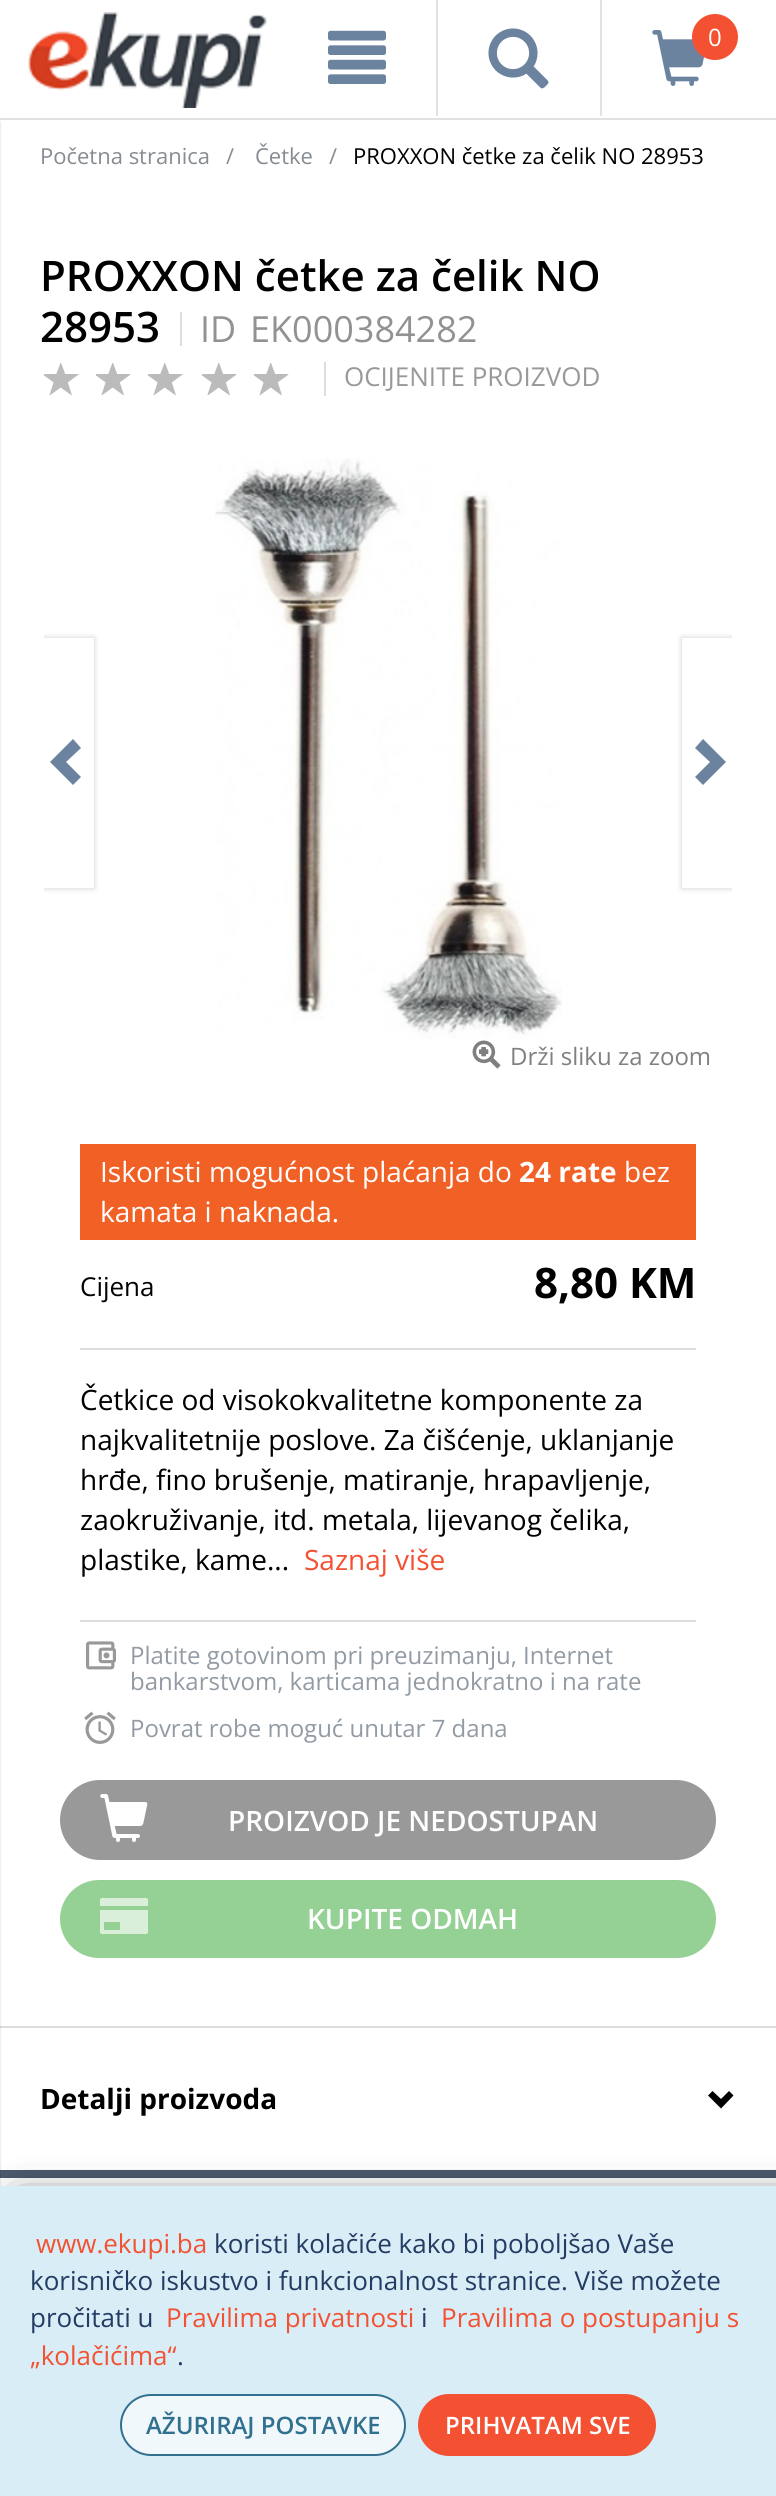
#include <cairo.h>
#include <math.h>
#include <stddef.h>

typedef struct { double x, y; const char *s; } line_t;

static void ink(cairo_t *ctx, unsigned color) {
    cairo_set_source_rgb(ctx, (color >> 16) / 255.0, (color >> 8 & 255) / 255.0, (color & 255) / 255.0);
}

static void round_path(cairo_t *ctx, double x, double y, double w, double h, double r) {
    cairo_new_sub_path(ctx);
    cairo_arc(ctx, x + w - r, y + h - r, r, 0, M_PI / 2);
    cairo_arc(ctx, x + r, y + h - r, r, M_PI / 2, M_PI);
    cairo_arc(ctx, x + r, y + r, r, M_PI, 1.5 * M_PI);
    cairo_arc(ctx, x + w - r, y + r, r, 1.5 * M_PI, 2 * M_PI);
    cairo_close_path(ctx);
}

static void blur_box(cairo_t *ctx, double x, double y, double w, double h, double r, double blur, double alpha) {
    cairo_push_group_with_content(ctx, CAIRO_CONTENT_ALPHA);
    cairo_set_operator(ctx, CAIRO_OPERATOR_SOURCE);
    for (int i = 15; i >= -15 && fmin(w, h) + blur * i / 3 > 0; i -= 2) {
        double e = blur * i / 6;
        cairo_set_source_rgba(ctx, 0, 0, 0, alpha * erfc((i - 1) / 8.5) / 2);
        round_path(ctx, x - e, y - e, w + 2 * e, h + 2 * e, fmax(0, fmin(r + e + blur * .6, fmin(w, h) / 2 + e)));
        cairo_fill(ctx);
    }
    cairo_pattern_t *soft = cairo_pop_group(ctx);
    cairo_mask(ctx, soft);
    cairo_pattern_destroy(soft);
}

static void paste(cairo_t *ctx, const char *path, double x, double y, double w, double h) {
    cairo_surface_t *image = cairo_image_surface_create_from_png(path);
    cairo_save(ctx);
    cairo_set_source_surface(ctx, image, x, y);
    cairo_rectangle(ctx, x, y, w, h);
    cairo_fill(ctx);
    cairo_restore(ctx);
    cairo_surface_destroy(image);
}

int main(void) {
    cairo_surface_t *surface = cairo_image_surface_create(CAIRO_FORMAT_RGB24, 776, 2496);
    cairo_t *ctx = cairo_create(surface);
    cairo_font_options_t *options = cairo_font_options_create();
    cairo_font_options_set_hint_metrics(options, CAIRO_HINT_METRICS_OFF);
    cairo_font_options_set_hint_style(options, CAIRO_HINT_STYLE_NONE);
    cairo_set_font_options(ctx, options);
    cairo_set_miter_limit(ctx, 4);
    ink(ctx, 0xFFFFFF);
    cairo_paint(ctx);
    paste(ctx, "media/1.png", 28, 12, 239, 96);
    ink(ctx, 0xE2E2E2);
    cairo_rectangle(ctx, 0, 118, 776, 2);
    cairo_fill(ctx);
    paste(ctx, "media/2.png", 328, 30, 58, 54);
    cairo_rectangle(ctx, 436, 0, 2, 116);
    cairo_fill(ctx);
    paste(ctx, "media/3.png", 488, 28, 61, 61);
    cairo_rectangle(ctx, 600, 0, 2, 116);
    cairo_fill(ctx);
    paste(ctx, "media/4.png", 652, 30, 52, 56);
    ink(ctx, 0xF35132);
    cairo_arc(ctx, 715, 37, 23, 0, 2 * M_PI);
    cairo_fill(ctx);
    cairo_select_font_face(ctx, "Open Sans", CAIRO_FONT_SLANT_NORMAL, CAIRO_FONT_WEIGHT_NORMAL);
    cairo_set_font_size(ctx, 24);
    ink(ctx, 0xFFFFFF);
    cairo_move_to(ctx, 708, 46);
    cairo_show_text(ctx, "0");
    ink(ctx, 0xDDDDDD);
    cairo_rectangle(ctx, 0, 2026, 776, 2);
    cairo_fill(ctx);
    ink(ctx, 0x4B5A6D);
    cairo_rectangle(ctx, 0, 2170, 776, 8);
    cairo_fill(ctx);
    ink(ctx, 0x000000);
    blur_box(ctx, -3, 122, 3, 2072, 0, 1, 0.2);
    cairo_set_font_size(ctx, 22);
    ink(ctx, 0x868C91);
    {
        static const line_t items[] = {
            {40, 164, "Početna stranica"},
            {226, 164, "/"},
            {255, 164, "Četke"},
            {329, 164, "/"},
        };
        for (size_t i = 0; i < sizeof items / sizeof *items; i++) {
            cairo_move_to(ctx, items[i].x, items[i].y);
            cairo_show_text(ctx, items[i].s);
        }
    }
    ink(ctx, 0x000000);
    cairo_move_to(ctx, 353, 164);
    cairo_show_text(ctx, "PROXXON četke za čelik NO 28953");
    cairo_select_font_face(ctx, "Open Sans SemiBold", CAIRO_FONT_SLANT_NORMAL, CAIRO_FONT_WEIGHT_NORMAL);
    cairo_set_font_size(ctx, 42);
    cairo_move_to(ctx, 40, 291);
    cairo_show_text(ctx, "PROXXON četke za čelik NO");
    cairo_move_to(ctx, 40, 342);
    cairo_show_text(ctx, "28953");
    ink(ctx, 0xDDDDDD);
    cairo_rectangle(ctx, 180, 312, 2, 34);
    cairo_fill(ctx);
    cairo_select_font_face(ctx, "Open Sans", CAIRO_FONT_SLANT_NORMAL, CAIRO_FONT_WEIGHT_NORMAL);
    cairo_set_font_size(ctx, 36);
    ink(ctx, 0x929292);
    cairo_move_to(ctx, 200, 342);
    cairo_show_text(ctx, "ID");
    cairo_move_to(ctx, 250, 342);
    cairo_show_text(ctx, "EK000384282");
    paste(ctx, "media/5.png", 44, 363, 35, 33);
    paste(ctx, "media/5.png", 96, 363, 35, 33);
    paste(ctx, "media/5.png", 148, 363, 35, 33);
    paste(ctx, "media/5.png", 202, 363, 35, 33);
    paste(ctx, "media/5.png", 254, 363, 35, 33);
    ink(ctx, 0xDDDDDD);
    cairo_rectangle(ctx, 324, 362, 2, 34);
    cairo_fill(ctx);
    cairo_set_font_size(ctx, 26);
    ink(ctx, 0x999999);
    cairo_move_to(ctx, 344, 386);
    cairo_show_text(ctx, "OCIJENITE PROIZVOD");
    paste(ctx, "media/6.png", 215, 458, 347, 581);
    cairo_save(ctx);
    cairo_rectangle(ctx, 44, 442, 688, 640);
    cairo_clip(ctx);
    cairo_set_fill_rule(ctx, CAIRO_FILL_RULE_EVEN_ODD);
    cairo_new_path(ctx);
    cairo_move_to(ctx, 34, 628);
    cairo_line_to(ctx, 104, 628);
    cairo_line_to(ctx, 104, 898);
    cairo_line_to(ctx, 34, 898);
    cairo_close_path(ctx);
    cairo_move_to(ctx, 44, 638);
    cairo_line_to(ctx, 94, 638);
    cairo_line_to(ctx, 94, 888);
    cairo_line_to(ctx, 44, 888);
    cairo_close_path(ctx);
    cairo_clip(ctx);
    ink(ctx, 0x000000);
    blur_box(ctx, 44, 638, 50, 250, 0, 3, 0.2);
    cairo_restore(ctx);
    ink(ctx, 0x6C83A0);
    cairo_new_path(ctx);
    cairo_move_to(ctx, 81, 748);
    cairo_line_to(ctx, 66, 762);
    cairo_line_to(ctx, 81, 777);
    cairo_line_to(ctx, 73, 785);
    cairo_line_to(ctx, 50, 762);
    cairo_line_to(ctx, 73, 739);
    cairo_close_path(ctx);
    cairo_fill(ctx);
    cairo_save(ctx);
    cairo_rectangle(ctx, 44, 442, 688, 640);
    cairo_clip(ctx);
    cairo_set_fill_rule(ctx, CAIRO_FILL_RULE_EVEN_ODD);
    cairo_new_path(ctx);
    cairo_move_to(ctx, 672, 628);
    cairo_line_to(ctx, 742, 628);
    cairo_line_to(ctx, 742, 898);
    cairo_line_to(ctx, 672, 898);
    cairo_close_path(ctx);
    cairo_move_to(ctx, 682, 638);
    cairo_line_to(ctx, 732, 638);
    cairo_line_to(ctx, 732, 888);
    cairo_line_to(ctx, 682, 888);
    cairo_close_path(ctx);
    cairo_clip(ctx);
    ink(ctx, 0x000000);
    blur_box(ctx, 682, 638, 50, 250, 0, 3, 0.2);
    cairo_restore(ctx);
    cairo_new_path(ctx);
    cairo_move_to(ctx, 726, 762);
    cairo_line_to(ctx, 703, 785);
    cairo_line_to(ctx, 695, 777);
    cairo_line_to(ctx, 710, 762);
    cairo_line_to(ctx, 695, 748);
    cairo_line_to(ctx, 703, 739);
    cairo_close_path(ctx);
    cairo_fill(ctx);
    cairo_set_source_rgba(ctx, 1, 1, 1, 0.5);
    cairo_rectangle(ctx, 517, 1034, 9, 4);
    cairo_fill(ctx);
    paste(ctx, "media/7.png", 472, 1040, 29, 29);
    cairo_set_font_size(ctx, 24);
    ink(ctx, 0x808080);
    cairo_move_to(ctx, 510, 1065);
    cairo_show_text(ctx, "Drži sliku za zoom");
    ink(ctx, 0xF16025);
    cairo_rectangle(ctx, 80, 1144, 616, 96);
    cairo_fill(ctx);
    cairo_set_font_size(ctx, 28);
    ink(ctx, 0xFFFFFF);
    cairo_move_to(ctx, 100, 1182);
    cairo_show_text(ctx, "Iskoristi mogućnost plaćanja do");
    cairo_select_font_face(ctx, "Open Sans", CAIRO_FONT_SLANT_NORMAL, CAIRO_FONT_WEIGHT_BOLD);
    cairo_move_to(ctx, 519, 1182);
    cairo_show_text(ctx, "24 rate");
    cairo_select_font_face(ctx, "Open Sans", CAIRO_FONT_SLANT_NORMAL, CAIRO_FONT_WEIGHT_NORMAL);
    cairo_move_to(ctx, 624, 1182);
    cairo_show_text(ctx, "bez");
    cairo_move_to(ctx, 100, 1222);
    cairo_show_text(ctx, "kamata i naknada.");
    ink(ctx, 0xDDDDDD);
    cairo_rectangle(ctx, 80, 1348, 616, 2);
    cairo_fill(ctx);
    cairo_set_font_size(ctx, 26);
    ink(ctx, 0x000000);
    cairo_move_to(ctx, 80, 1296);
    cairo_show_text(ctx, "Cijena");
    cairo_select_font_face(ctx, "Open Sans", CAIRO_FONT_SLANT_NORMAL, CAIRO_FONT_WEIGHT_BOLD);
    cairo_set_font_size(ctx, 42);
    cairo_move_to(ctx, 534, 1298);
    cairo_show_text(ctx, "8,80 KM");
    ink(ctx, 0xDDDDDD);
    cairo_rectangle(ctx, 80, 1620, 616, 2);
    cairo_fill(ctx);
    cairo_select_font_face(ctx, "Open Sans", CAIRO_FONT_SLANT_NORMAL, CAIRO_FONT_WEIGHT_NORMAL);
    cairo_set_font_size(ctx, 28);
    ink(ctx, 0x000000);
    {
        static const line_t items[] = {
            {80, 1410, "Četkice od visokokvalitetne komponente za"},
            {80, 1450, "najkvalitetnije poslove. Za čišćenje, uklanjanje"},
            {80, 1490, "hrđe, fino brušenje, matiranje, hrapavljenje,"},
            {80, 1530, "zaokruživanje, itd. metala, lijevanog čelika,"},
            {80, 1570, "plastike, kame..."},
        };
        for (size_t i = 0; i < sizeof items / sizeof *items; i++) {
            cairo_move_to(ctx, items[i].x, items[i].y);
            cairo_show_text(ctx, items[i].s);
        }
    }
    ink(ctx, 0xF35132);
    cairo_move_to(ctx, 304, 1570);
    cairo_show_text(ctx, "Saznaj više");
    paste(ctx, "media/8.png", 86, 1641, 30, 29);
    cairo_set_font_size(ctx, 24);
    ink(ctx, 0x929BA4);
    cairo_move_to(ctx, 130, 1664);
    cairo_show_text(ctx, "Platite gotovinom pri preuzimanju, Internet");
    cairo_move_to(ctx, 130, 1690);
    cairo_show_text(ctx, "bankarstvom, karticama jednokratno i na rate");
    paste(ctx, "media/9.png", 84, 1711, 32, 33);
    cairo_move_to(ctx, 130, 1737);
    cairo_show_text(ctx, "Povrat robe moguć unutar 7 dana");
    ink(ctx, 0x999999);
    round_path(ctx, 60, 1780, 656, 80, 40);
    cairo_fill(ctx);
    paste(ctx, "media/10.png", 100, 1794, 48, 48);
    cairo_select_font_face(ctx, "Open Sans SemiBold", CAIRO_FONT_SLANT_NORMAL, CAIRO_FONT_WEIGHT_NORMAL);
    cairo_set_font_size(ctx, 28);
    ink(ctx, 0xFFFFFF);
    cairo_move_to(ctx, 228, 1831);
    cairo_show_text(ctx, "PROIZVOD JE NEDOSTUPAN");
    ink(ctx, 0x95D195);
    round_path(ctx, 60, 1880, 656, 78, 39);
    cairo_fill(ctx);
    paste(ctx, "media/11.png", 100, 1898, 48, 36);
    ink(ctx, 0xFFFFFF);
    cairo_move_to(ctx, 307, 1929);
    cairo_show_text(ctx, "KUPITE ODMAH");
    cairo_select_font_face(ctx, "Open Sans", CAIRO_FONT_SLANT_NORMAL, CAIRO_FONT_WEIGHT_BOLD);
    ink(ctx, 0x000000);
    cairo_move_to(ctx, 40, 2109);
    cairo_show_text(ctx, "Detalji proizvoda");
    cairo_new_path(ctx);
    cairo_move_to(ctx, 733.5, 2095.5);
    cairo_line_to(ctx, 721, 2108.5);
    cairo_line_to(ctx, 708, 2095.5);
    cairo_line_to(ctx, 712.5, 2091);
    cairo_line_to(ctx, 721, 2099);
    cairo_line_to(ctx, 729, 2091);
    cairo_close_path(ctx);
    cairo_fill(ctx);
    ink(ctx, 0x000000);
    blur_box(ctx, 20, 2206, 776, 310, 0, 20, 1);
    ink(ctx, 0xD9EDF7);
    cairo_rectangle(ctx, 0, 2186, 776, 310);
    cairo_fill(ctx);
    cairo_select_font_face(ctx, "Open Sans", CAIRO_FONT_SLANT_NORMAL, CAIRO_FONT_WEIGHT_NORMAL);
    cairo_set_font_size(ctx, 26);
    ink(ctx, 0xF35132);
    cairo_move_to(ctx, 36, 2253);
    cairo_show_text(ctx, "www.ekupi.ba");
    ink(ctx, 0x233C63);
    {
        static const line_t items[] = {
            {214, 2253, "koristi kolačiće kako bi poboljšao Vaše"},
            {30, 2290, "korisničko iskustvo i funkcionalnost stranice. Više možete"},
            {30, 2327, "pročitati u"},
        };
        for (size_t i = 0; i < sizeof items / sizeof *items; i++) {
            cairo_move_to(ctx, items[i].x, items[i].y);
            cairo_show_text(ctx, items[i].s);
        }
    }
    ink(ctx, 0xF35132);
    cairo_move_to(ctx, 166, 2327);
    cairo_show_text(ctx, "Pravilima privatnosti");
    ink(ctx, 0x233C63);
    cairo_move_to(ctx, 421, 2327);
    cairo_show_text(ctx, "i");
    ink(ctx, 0xF35132);
    cairo_move_to(ctx, 441, 2327);
    cairo_show_text(ctx, "Pravilima o postupanju s");
    cairo_move_to(ctx, 30, 2365);
    cairo_show_text(ctx, "„kolačićima“");
    ink(ctx, 0x233C63);
    cairo_move_to(ctx, 177, 2365);
    cairo_show_text(ctx, ".");
    ink(ctx, 0xF0F8FC);
    round_path(ctx, 121, 2395, 284, 60, 30);
    cairo_fill_preserve(ctx);
    ink(ctx, 0x31708F);
    cairo_stroke(ctx);
    cairo_select_font_face(ctx, "Open Sans SemiBold", CAIRO_FONT_SLANT_NORMAL, CAIRO_FONT_WEIGHT_NORMAL);
    cairo_set_font_size(ctx, 24);
    cairo_move_to(ctx, 146, 2434);
    cairo_show_text(ctx, "AŽURIRAJ POSTAVKE");
    ink(ctx, 0xF35132);
    round_path(ctx, 419, 2395, 236, 60, 30);
    cairo_fill_preserve(ctx);
    cairo_stroke(ctx);
    ink(ctx, 0xFFFFFF);
    cairo_move_to(ctx, 445, 2434);
    cairo_show_text(ctx, "PRIHVATAM SVE");
    cairo_surface_write_to_png(surface, "image.png");
    cairo_font_options_destroy(options);
    cairo_destroy(ctx);
    cairo_surface_destroy(surface);
    return 0;
}
